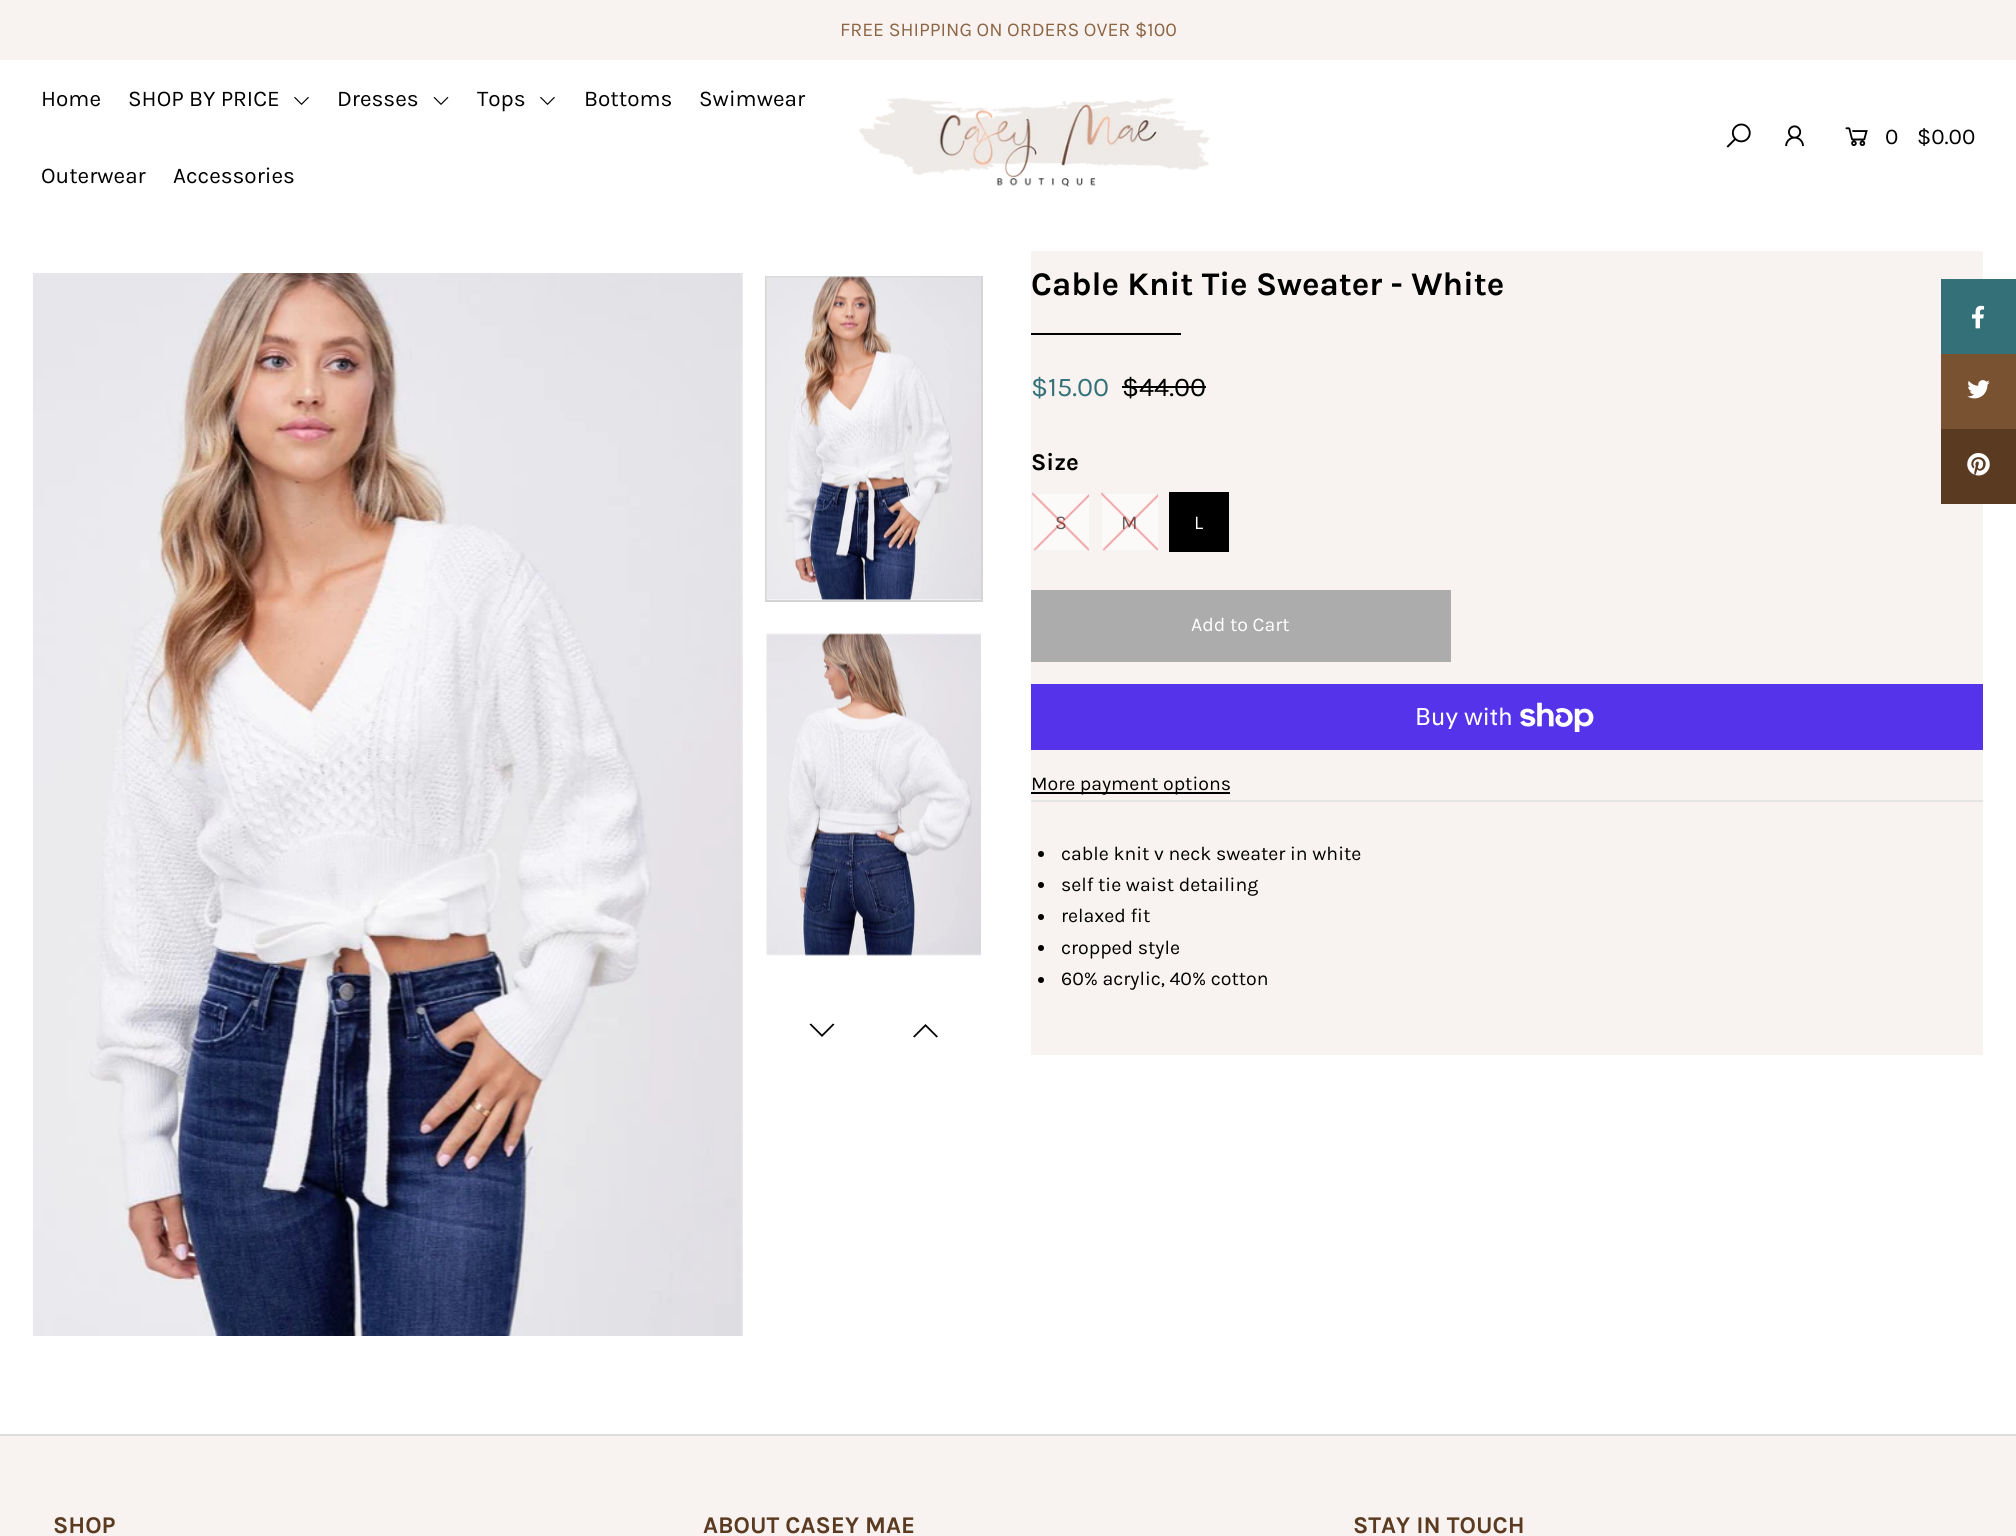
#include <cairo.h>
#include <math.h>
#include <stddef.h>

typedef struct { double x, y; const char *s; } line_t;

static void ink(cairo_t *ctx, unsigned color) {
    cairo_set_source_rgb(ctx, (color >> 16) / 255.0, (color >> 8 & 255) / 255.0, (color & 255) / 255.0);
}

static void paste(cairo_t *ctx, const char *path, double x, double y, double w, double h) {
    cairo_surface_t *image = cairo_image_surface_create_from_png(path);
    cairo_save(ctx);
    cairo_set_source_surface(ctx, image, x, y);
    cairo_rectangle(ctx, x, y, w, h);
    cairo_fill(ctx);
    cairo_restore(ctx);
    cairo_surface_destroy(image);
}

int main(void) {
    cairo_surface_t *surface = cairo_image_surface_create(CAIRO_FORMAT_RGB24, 2016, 1536);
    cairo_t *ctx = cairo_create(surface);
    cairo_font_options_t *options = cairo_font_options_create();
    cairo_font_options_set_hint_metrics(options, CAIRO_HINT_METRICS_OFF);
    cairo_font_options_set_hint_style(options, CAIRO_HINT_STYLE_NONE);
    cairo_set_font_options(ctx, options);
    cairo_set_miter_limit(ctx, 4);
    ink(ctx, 0xFFFFFF);
    cairo_paint(ctx);
    ink(ctx, 0xF8F3F0);
    cairo_rectangle(ctx, 0, 0, 2016, 60);
    cairo_fill(ctx);
    cairo_select_font_face(ctx, "Karla", CAIRO_FONT_SLANT_NORMAL, CAIRO_FONT_WEIGHT_NORMAL);
    cairo_set_font_size(ctx, 19.5);
    ink(ctx, 0x8D6544);
    cairo_move_to(ctx, 840, 36);
    cairo_show_text(ctx, "FREE SHIPPING ON ORDERS OVER $100");
    cairo_set_font_size(ctx, 22.5);
    ink(ctx, 0x000000);
    cairo_move_to(ctx, 41, 106);
    cairo_show_text(ctx, "Home");
    cairo_move_to(ctx, 128, 106);
    cairo_show_text(ctx, "SHOP BY PRICE");
    paste(ctx, "media/1.png", 294, 96, 15, 9);
    cairo_move_to(ctx, 337, 106);
    cairo_show_text(ctx, "Dresses");
    paste(ctx, "media/2.png", 433, 96, 16, 9);
    cairo_move_to(ctx, 477, 106);
    cairo_show_text(ctx, "Tops");
    paste(ctx, "media/1.png", 540, 96, 15, 9);
    {
        static const line_t items[] = {
            {584, 106, "Bottoms"},
            {699, 106, "Swimwear"},
            {41, 183, "Outerwear"},
            {173, 183, "Accessories"},
        };
        for (size_t i = 0; i < sizeof items / sizeof *items; i++) {
            cairo_move_to(ctx, items[i].x, items[i].y);
            cairo_show_text(ctx, items[i].s);
        }
    }
    paste(ctx, "media/3.png", 859, 97, 351, 90);
    paste(ctx, "media/4.png", 1726, 123, 25, 25);
    paste(ctx, "media/5.png", 1785, 125, 19, 22);
    paste(ctx, "media/6.png", 1845, 127, 23, 19);
    cairo_move_to(ctx, 1885, 144);
    cairo_show_text(ctx, "0");
    cairo_move_to(ctx, 1917, 144);
    cairo_show_text(ctx, "$0.00");
    paste(ctx, "media/7.png", 33, 273, 710, 1063);
    cairo_rectangle(ctx, 766, 277, 216, 324);
    ink(ctx, 0xD5D5D5);
    cairo_stroke(ctx);
    paste(ctx, "media/8.png", 766, 276, 215, 324);
    paste(ctx, "media/9.png", 766, 633, 215, 323);
    ink(ctx, 0x000000);
    cairo_new_path(ctx);
    cairo_move_to(ctx, 811, 1023.5);
    cairo_line_to(ctx, 822, 1034.5);
    cairo_line_to(ctx, 833, 1023.5);
    cairo_line_to(ctx, 834.5, 1024.5);
    cairo_line_to(ctx, 822, 1037);
    cairo_line_to(ctx, 809.5, 1024.5);
    cairo_close_path(ctx);
    cairo_fill(ctx);
    cairo_new_path(ctx);
    cairo_move_to(ctx, 925.5, 1024);
    cairo_line_to(ctx, 938, 1036.5);
    cairo_line_to(ctx, 936.5, 1037.5);
    cairo_line_to(ctx, 925.5, 1026.5);
    cairo_line_to(ctx, 914.5, 1037.5);
    cairo_line_to(ctx, 913, 1036.5);
    cairo_close_path(ctx);
    cairo_fill(ctx);
    ink(ctx, 0xF8F3F0);
    cairo_rectangle(ctx, 1031, 251, 952, 804);
    cairo_fill(ctx);
    cairo_select_font_face(ctx, "Karla", CAIRO_FONT_SLANT_NORMAL, CAIRO_FONT_WEIGHT_BOLD);
    cairo_set_font_size(ctx, 33);
    ink(ctx, 0x000000);
    cairo_move_to(ctx, 1031, 295);
    cairo_show_text(ctx, "Cable Knit Tie Sweater - White");
    cairo_rectangle(ctx, 1031, 333, 150, 2);
    cairo_fill(ctx);
    ink(ctx, 0xE5E5E5);
    cairo_rectangle(ctx, 1031, 800, 952, 2);
    cairo_fill(ctx);
    cairo_select_font_face(ctx, "Karla", CAIRO_FONT_SLANT_NORMAL, CAIRO_FONT_WEIGHT_NORMAL);
    cairo_set_font_size(ctx, 27);
    ink(ctx, 0x337078);
    cairo_move_to(ctx, 1031, 396);
    cairo_show_text(ctx, "$15.00");
    ink(ctx, 0x000000);
    cairo_move_to(ctx, 1122, 396);
    cairo_show_text(ctx, "$44.00");
    cairo_rectangle(ctx, 1122, 386, 84, 2);
    cairo_fill(ctx);
    cairo_select_font_face(ctx, "Karla", CAIRO_FONT_SLANT_NORMAL, CAIRO_FONT_WEIGHT_BOLD);
    cairo_set_font_size(ctx, 24);
    cairo_move_to(ctx, 1031, 470);
    cairo_show_text(ctx, "Size");
    ink(ctx, 0xFCFAF9);
    cairo_rectangle(ctx, 1032, 493, 58, 58);
    cairo_fill_preserve(ctx);
    ink(ctx, 0xF6F4F3);
    cairo_stroke(ctx);
    cairo_select_font_face(ctx, "Karla", CAIRO_FONT_SLANT_NORMAL, CAIRO_FONT_WEIGHT_NORMAL);
    cairo_set_font_size(ctx, 19.5);
    ink(ctx, 0x636160);
    cairo_move_to(ctx, 1055, 529);
    cairo_show_text(ctx, "S");
    paste(ctx, "media/10.png", 1032, 492, 57, 59);
    ink(ctx, 0xFCFAF9);
    cairo_rectangle(ctx, 1101, 493, 58, 58);
    cairo_fill_preserve(ctx);
    ink(ctx, 0xF6F4F3);
    cairo_stroke(ctx);
    ink(ctx, 0x636160);
    cairo_move_to(ctx, 1121, 529);
    cairo_show_text(ctx, "M");
    paste(ctx, "media/11.png", 1101, 492, 57, 59);
    ink(ctx, 0x000000);
    cairo_rectangle(ctx, 1169, 492, 60, 60);
    cairo_fill(ctx);
    ink(ctx, 0xFFFFFF);
    cairo_move_to(ctx, 1194, 529);
    cairo_show_text(ctx, "L");
    ink(ctx, 0xACACAC);
    cairo_rectangle(ctx, 1031, 590, 420, 72);
    cairo_fill(ctx);
    ink(ctx, 0xFFFFFF);
    cairo_move_to(ctx, 1191, 631);
    cairo_show_text(ctx, "Add to Cart");
    ink(ctx, 0x5433EB);
    cairo_rectangle(ctx, 1031, 684, 952, 66);
    cairo_fill(ctx);
    cairo_select_font_face(ctx, "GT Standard", CAIRO_FONT_SLANT_NORMAL, CAIRO_FONT_WEIGHT_NORMAL);
    cairo_set_font_size(ctx, 24);
    ink(ctx, 0xFFFFFF);
    cairo_move_to(ctx, 1415, 725);
    cairo_show_text(ctx, "Buy with");
    paste(ctx, "media/12.png", 1520, 702, 74, 30);
    ink(ctx, 0x000000);
    cairo_rectangle(ctx, 1031, 792, 199, 2);
    cairo_fill(ctx);
    cairo_select_font_face(ctx, "Karla", CAIRO_FONT_SLANT_NORMAL, CAIRO_FONT_WEIGHT_NORMAL);
    cairo_set_font_size(ctx, 19.5);
    cairo_move_to(ctx, 1031, 790);
    cairo_show_text(ctx, "More payment options");
    cairo_new_path(ctx);
    cairo_arc(ctx, 1041, 854, 3, 0, 2 * M_PI);
    cairo_fill(ctx);
    cairo_move_to(ctx, 1061, 860);
    cairo_show_text(ctx, "cable knit v neck sweater in white");
    cairo_new_path(ctx);
    cairo_arc(ctx, 1041, 885, 3, 0, 2 * M_PI);
    cairo_fill(ctx);
    cairo_move_to(ctx, 1061, 891);
    cairo_show_text(ctx, "self tie waist detailing");
    cairo_new_path(ctx);
    cairo_arc(ctx, 1041, 917, 3, 0, 2 * M_PI);
    cairo_fill(ctx);
    cairo_move_to(ctx, 1061, 922);
    cairo_show_text(ctx, "relaxed fit");
    cairo_new_path(ctx);
    cairo_arc(ctx, 1041, 948, 3, 0, 2 * M_PI);
    cairo_fill(ctx);
    cairo_move_to(ctx, 1061, 954);
    cairo_show_text(ctx, "cropped style");
    cairo_new_path(ctx);
    cairo_arc(ctx, 1041, 980, 3, 0, 2 * M_PI);
    cairo_fill(ctx);
    cairo_move_to(ctx, 1061, 985);
    cairo_show_text(ctx, "60% acrylic, 40% cotton");
    ink(ctx, 0x337078);
    cairo_rectangle(ctx, 1941, 279, 75, 75);
    cairo_fill(ctx);
    paste(ctx, "media/13.png", 1972, 305, 13, 24);
    ink(ctx, 0x795232);
    cairo_rectangle(ctx, 1941, 354, 75, 75);
    cairo_fill(ctx);
    paste(ctx, "media/14.png", 1967, 380, 23, 19);
    ink(ctx, 0x5A3B21);
    cairo_rectangle(ctx, 1941, 429, 75, 75);
    cairo_fill(ctx);
    paste(ctx, "media/15.png", 1967, 453, 23, 23);
    ink(ctx, 0xF8F3F0);
    cairo_rectangle(ctx, 0, 1436, 2016, 100);
    cairo_fill(ctx);
    ink(ctx, 0xDDDDDD);
    cairo_rectangle(ctx, 0, 1434, 2016, 2);
    cairo_fill(ctx);
    cairo_select_font_face(ctx, "Karla", CAIRO_FONT_SLANT_NORMAL, CAIRO_FONT_WEIGHT_BOLD);
    cairo_set_font_size(ctx, 24);
    ink(ctx, 0x5A3B21);
    {
        static const line_t items[] = {
            {53, 1533, "SHOP"},
            {703, 1533, "ABOUT CASEY MAE"},
            {1353, 1533, "STAY IN TOUCH"},
        };
        for (size_t i = 0; i < sizeof items / sizeof *items; i++) {
            cairo_move_to(ctx, items[i].x, items[i].y);
            cairo_show_text(ctx, items[i].s);
        }
    }
    cairo_surface_write_to_png(surface, "image.png");
    cairo_font_options_destroy(options);
    cairo_destroy(ctx);
    cairo_surface_destroy(surface);
    return 0;
}
